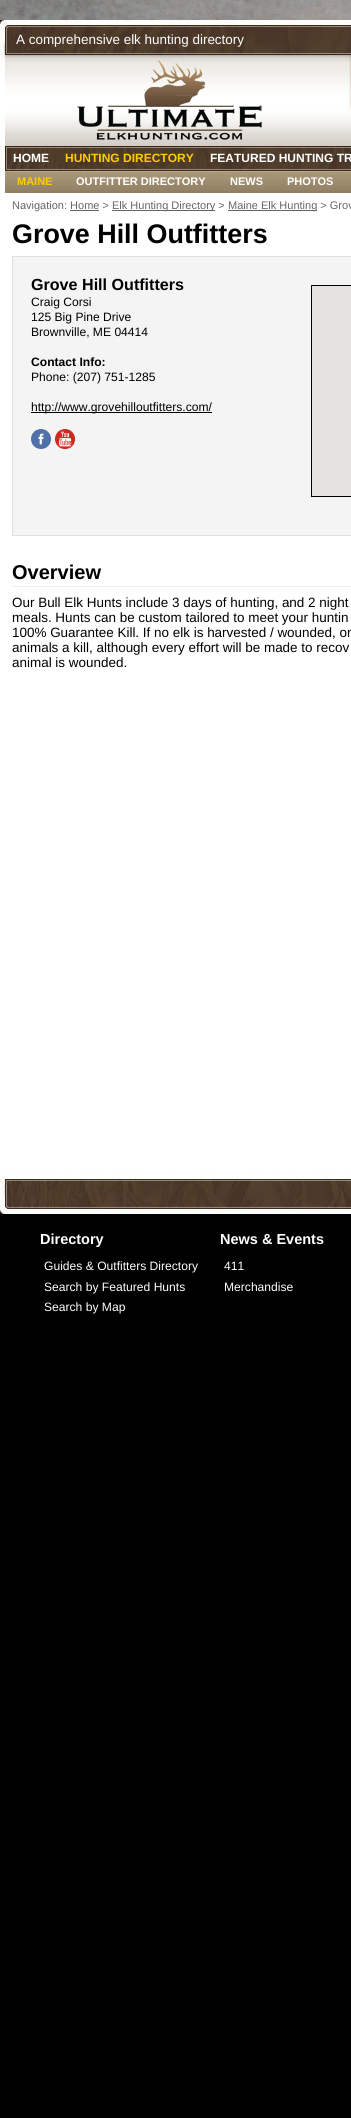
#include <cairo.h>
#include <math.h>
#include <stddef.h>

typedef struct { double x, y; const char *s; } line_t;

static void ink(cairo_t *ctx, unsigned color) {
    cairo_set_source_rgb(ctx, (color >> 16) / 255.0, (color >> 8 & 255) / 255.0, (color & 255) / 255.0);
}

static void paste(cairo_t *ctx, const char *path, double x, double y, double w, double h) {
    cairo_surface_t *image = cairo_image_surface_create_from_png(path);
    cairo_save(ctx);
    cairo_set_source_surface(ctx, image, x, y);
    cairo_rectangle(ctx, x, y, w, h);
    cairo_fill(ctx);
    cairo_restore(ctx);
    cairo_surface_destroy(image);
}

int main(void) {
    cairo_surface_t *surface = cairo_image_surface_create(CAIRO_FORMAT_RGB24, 351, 2118);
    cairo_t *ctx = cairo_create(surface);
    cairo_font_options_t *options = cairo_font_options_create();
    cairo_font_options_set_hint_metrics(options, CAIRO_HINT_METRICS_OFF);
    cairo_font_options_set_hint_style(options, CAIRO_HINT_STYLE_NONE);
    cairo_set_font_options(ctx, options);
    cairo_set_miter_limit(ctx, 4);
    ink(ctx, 0x000000);
    cairo_paint(ctx);
    paste(ctx, "media/1.png", 0, 0, 351, 20);
    paste(ctx, "media/2.png", 0, 20, 351, 35);
    cairo_select_font_face(ctx, "Liberation Sans", CAIRO_FONT_SLANT_NORMAL, CAIRO_FONT_WEIGHT_NORMAL);
    cairo_set_font_size(ctx, 13.45);
    ink(ctx, 0xFFFFFF);
    cairo_move_to(ctx, 16, 44);
    cairo_show_text(ctx, "A comprehensive elk hunting directory");
    cairo_rectangle(ctx, 0, 55, 1, 72);
    cairo_fill(ctx);
    paste(ctx, "media/3.png", 1, 55, 350, 72);
    paste(ctx, "media/5.png", 0, 127, 351, 18);
    paste(ctx, "media/4.png", 77, 60, 185, 80);
    paste(ctx, "media/6.png", 0, 145, 351, 26);
    cairo_select_font_face(ctx, "Liberation Sans", CAIRO_FONT_SLANT_NORMAL, CAIRO_FONT_WEIGHT_BOLD);
    cairo_set_font_size(ctx, 12);
    cairo_move_to(ctx, 13, 162);
    cairo_show_text(ctx, "HOME");
    ink(ctx, 0xFFCC00);
    cairo_move_to(ctx, 65, 162);
    cairo_show_text(ctx, "HUNTING DIRECTORY");
    ink(ctx, 0xFFFFFF);
    cairo_move_to(ctx, 210, 162);
    cairo_show_text(ctx, "FEATURED HUNTING TR");
    cairo_rectangle(ctx, 0, 171, 1, 22);
    cairo_fill(ctx);
    paste(ctx, "media/7.png", 1, 171, 350, 22);
    cairo_set_font_size(ctx, 11);
    ink(ctx, 0xFFCC00);
    cairo_move_to(ctx, 17, 185);
    cairo_show_text(ctx, "MAINE");
    ink(ctx, 0xFFFFFF);
    {
        static const line_t items[] = {
            {76, 185, "OUTFITTER DIRECTORY"},
            {230, 185, "NEWS"},
            {287, 185, "PHOTOS"},
        };
        for (size_t i = 0; i < sizeof items / sizeof *items; i++) {
            cairo_move_to(ctx, items[i].x, items[i].y);
            cairo_show_text(ctx, items[i].s);
        }
    }
    cairo_rectangle(ctx, 0, 193, 351, 981);
    cairo_fill(ctx);
    cairo_select_font_face(ctx, "Liberation Sans", CAIRO_FONT_SLANT_NORMAL, CAIRO_FONT_WEIGHT_NORMAL);
    ink(ctx, 0x666666);
    cairo_move_to(ctx, 12, 209);
    cairo_show_text(ctx, "Navigation: Home >");
    cairo_rectangle(ctx, 112, 210, 103, 1);
    cairo_fill(ctx);
    cairo_move_to(ctx, 112, 209);
    cairo_show_text(ctx, "Elk Hunting Directory >");
    cairo_rectangle(ctx, 228, 210, 89, 1);
    cairo_fill(ctx);
    cairo_move_to(ctx, 228, 209);
    cairo_show_text(ctx, "Maine Elk Hunting > Grov");
    cairo_rectangle(ctx, 70, 210, 29, 1);
    cairo_fill(ctx);
    cairo_select_font_face(ctx, "Liberation Sans", CAIRO_FONT_SLANT_NORMAL, CAIRO_FONT_WEIGHT_BOLD);
    cairo_set_font_size(ctx, 26.9);
    ink(ctx, 0x000000);
    cairo_move_to(ctx, 12, 243);
    cairo_show_text(ctx, "Grove Hill Outfitters");
    ink(ctx, 0xF4F4F4);
    cairo_rectangle(ctx, 12.5, 256.5, 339, 279);
    cairo_fill_preserve(ctx);
    ink(ctx, 0xE0E0E0);
    cairo_set_line_width(ctx, 1);
    cairo_stroke(ctx);
    cairo_set_font_size(ctx, 16.1);
    ink(ctx, 0x000000);
    cairo_move_to(ctx, 31, 290);
    cairo_show_text(ctx, "Grove Hill Outfitters");
    cairo_rectangle(ctx, 311.5, 285.5, 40, 211);
    cairo_stroke(ctx);
    ink(ctx, 0xE5E3DF);
    cairo_rectangle(ctx, 312, 286, 39, 210);
    cairo_fill(ctx);
    cairo_select_font_face(ctx, "Liberation Sans", CAIRO_FONT_SLANT_NORMAL, CAIRO_FONT_WEIGHT_NORMAL);
    cairo_set_font_size(ctx, 12.1);
    ink(ctx, 0x000000);
    {
        static const line_t items[] = {
            {31, 306, "Craig Corsi"},
            {31, 321, "125 Big Pine Drive"},
            {31, 336, "Brownville, ME 04414"},
        };
        for (size_t i = 0; i < sizeof items / sizeof *items; i++) {
            cairo_move_to(ctx, items[i].x, items[i].y);
            cairo_show_text(ctx, items[i].s);
        }
    }
    cairo_select_font_face(ctx, "Liberation Sans", CAIRO_FONT_SLANT_NORMAL, CAIRO_FONT_WEIGHT_BOLD);
    cairo_move_to(ctx, 31, 366);
    cairo_show_text(ctx, "Contact Info:");
    cairo_select_font_face(ctx, "Liberation Sans", CAIRO_FONT_SLANT_NORMAL, CAIRO_FONT_WEIGHT_NORMAL);
    cairo_move_to(ctx, 31, 381);
    cairo_show_text(ctx, "Phone: (207) 751-1285");
    cairo_rectangle(ctx, 31, 412, 181, 1);
    cairo_fill(ctx);
    cairo_move_to(ctx, 31, 411);
    cairo_show_text(ctx, "http://www.grovehilloutfitters.com/");
    paste(ctx, "media/8.png", 31, 429, 20, 20);
    paste(ctx, "media/9.png", 55, 429, 20, 20);
    ink(ctx, 0xEEEEEE);
    cairo_rectangle(ctx, 12, 586, 339, 1);
    cairo_fill(ctx);
    cairo_select_font_face(ctx, "Liberation Sans", CAIRO_FONT_SLANT_NORMAL, CAIRO_FONT_WEIGHT_BOLD);
    cairo_set_font_size(ctx, 20);
    ink(ctx, 0x000000);
    cairo_move_to(ctx, 12, 579);
    cairo_show_text(ctx, "Overview");
    cairo_select_font_face(ctx, "Liberation Sans", CAIRO_FONT_SLANT_NORMAL, CAIRO_FONT_WEIGHT_NORMAL);
    cairo_set_font_size(ctx, 13.45);
    {
        static const line_t items[] = {
            {12, 607, "Our Bull Elk Hunts include 3 days of hunting, and 2 night"},
            {12, 622, "meals. Hunts can be custom tailored to meet your huntin"},
            {12, 637, "100% Guarantee Kill. If no elk is harvested / wounded, on"},
            {12, 652, "animals a kill, although every effort will be made to recov"},
            {12, 667, "animal is wounded."},
        };
        for (size_t i = 0; i < sizeof items / sizeof *items; i++) {
            cairo_move_to(ctx, items[i].x, items[i].y);
            cairo_show_text(ctx, items[i].s);
        }
    }
    paste(ctx, "media/10.png", 0, 1174, 351, 40);
    cairo_select_font_face(ctx, "Liberation Sans", CAIRO_FONT_SLANT_NORMAL, CAIRO_FONT_WEIGHT_BOLD);
    cairo_set_font_size(ctx, 14.5);
    ink(ctx, 0xFFFFFF);
    cairo_move_to(ctx, 40, 1244);
    cairo_show_text(ctx, "Directory");
    cairo_select_font_face(ctx, "Liberation Sans", CAIRO_FONT_SLANT_NORMAL, CAIRO_FONT_WEIGHT_NORMAL);
    cairo_set_font_size(ctx, 12.1);
    {
        static const line_t items[] = {
            {44, 1270, "Guides & Outfitters Directory"},
            {44, 1291, "Search by Featured Hunts"},
            {44, 1311, "Search by Map"},
        };
        for (size_t i = 0; i < sizeof items / sizeof *items; i++) {
            cairo_move_to(ctx, items[i].x, items[i].y);
            cairo_show_text(ctx, items[i].s);
        }
    }
    cairo_select_font_face(ctx, "Liberation Sans", CAIRO_FONT_SLANT_NORMAL, CAIRO_FONT_WEIGHT_BOLD);
    cairo_set_font_size(ctx, 14.5);
    cairo_move_to(ctx, 220, 1244);
    cairo_show_text(ctx, "News & Events");
    cairo_select_font_face(ctx, "Liberation Sans", CAIRO_FONT_SLANT_NORMAL, CAIRO_FONT_WEIGHT_NORMAL);
    cairo_set_font_size(ctx, 12.1);
    cairo_move_to(ctx, 224, 1270);
    cairo_show_text(ctx, "411");
    cairo_move_to(ctx, 224, 1291);
    cairo_show_text(ctx, "Merchandise");
    cairo_surface_write_to_png(surface, "image.png");
    cairo_font_options_destroy(options);
    cairo_destroy(ctx);
    cairo_surface_destroy(surface);
    return 0;
}
